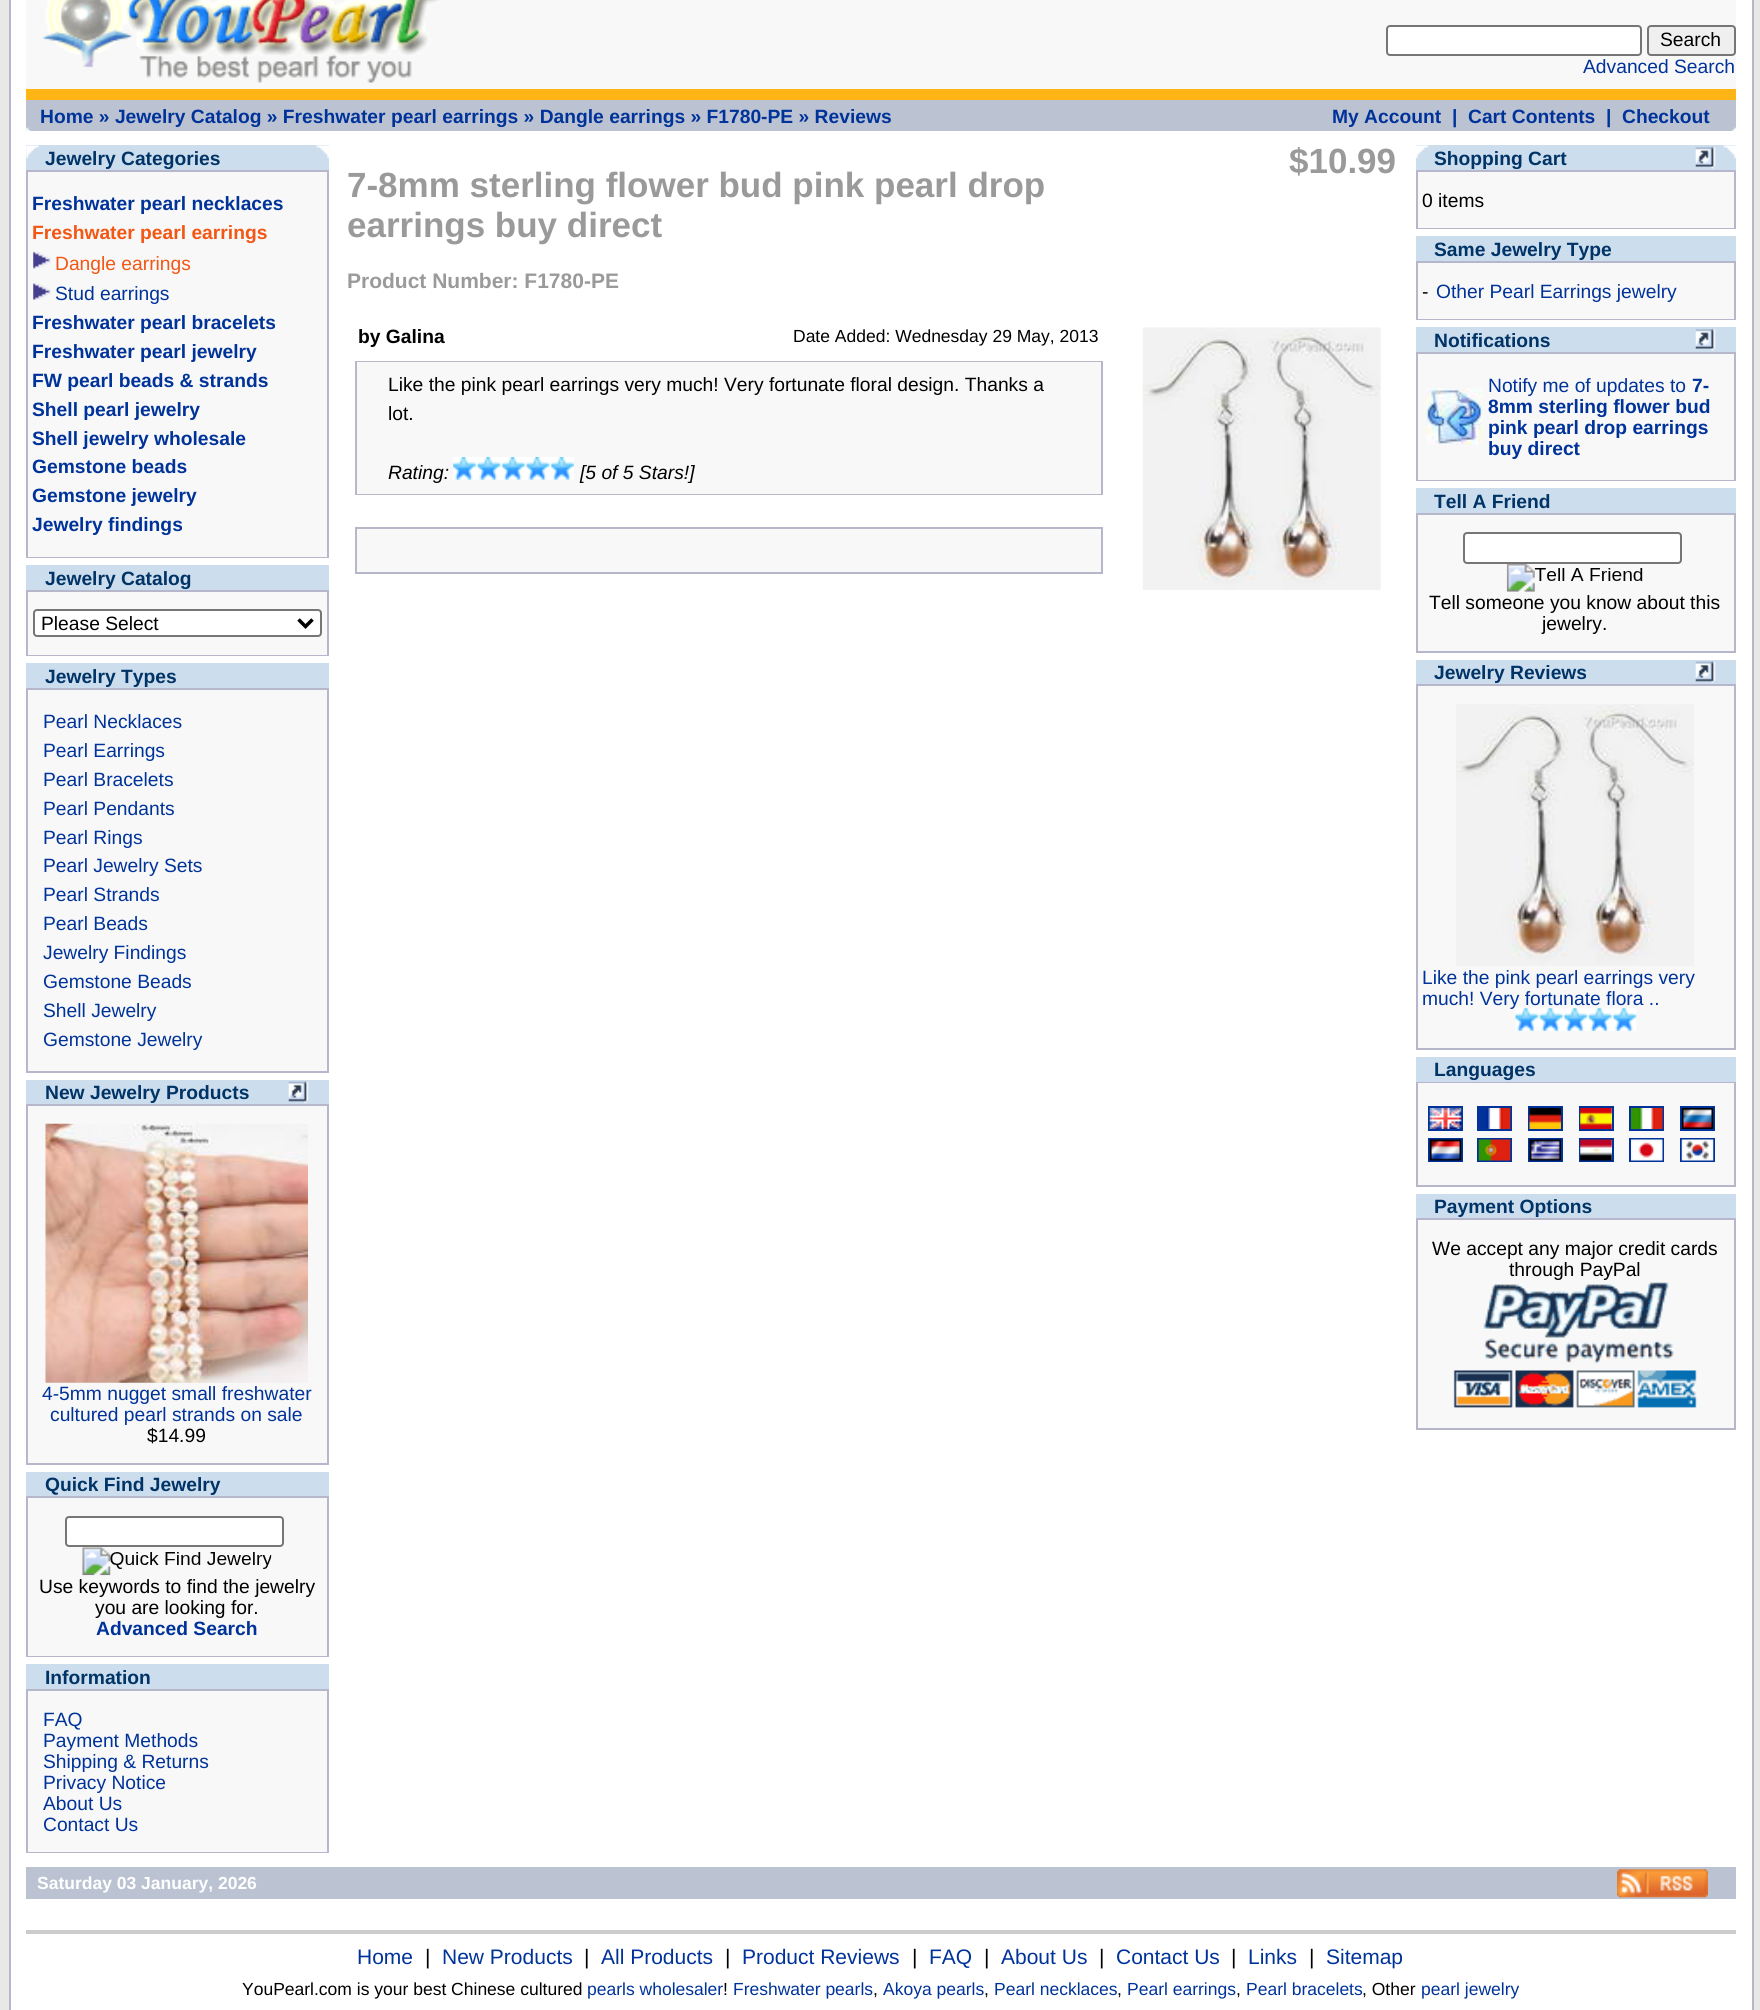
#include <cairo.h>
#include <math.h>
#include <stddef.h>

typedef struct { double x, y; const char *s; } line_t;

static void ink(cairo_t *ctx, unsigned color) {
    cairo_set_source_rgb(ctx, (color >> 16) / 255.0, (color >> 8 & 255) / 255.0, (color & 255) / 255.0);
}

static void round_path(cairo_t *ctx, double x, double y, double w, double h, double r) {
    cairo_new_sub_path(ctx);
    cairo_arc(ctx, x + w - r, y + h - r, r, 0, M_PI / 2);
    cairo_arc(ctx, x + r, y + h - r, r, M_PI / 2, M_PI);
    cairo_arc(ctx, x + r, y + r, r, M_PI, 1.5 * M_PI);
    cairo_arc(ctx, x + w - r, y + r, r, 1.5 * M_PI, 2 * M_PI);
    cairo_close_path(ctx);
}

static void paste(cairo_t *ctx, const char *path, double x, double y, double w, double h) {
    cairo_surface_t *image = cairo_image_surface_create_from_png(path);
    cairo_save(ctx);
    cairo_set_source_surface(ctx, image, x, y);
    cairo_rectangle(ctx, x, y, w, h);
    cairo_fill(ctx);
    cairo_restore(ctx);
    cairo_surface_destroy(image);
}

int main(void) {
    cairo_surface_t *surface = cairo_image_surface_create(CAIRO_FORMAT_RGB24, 1760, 2010);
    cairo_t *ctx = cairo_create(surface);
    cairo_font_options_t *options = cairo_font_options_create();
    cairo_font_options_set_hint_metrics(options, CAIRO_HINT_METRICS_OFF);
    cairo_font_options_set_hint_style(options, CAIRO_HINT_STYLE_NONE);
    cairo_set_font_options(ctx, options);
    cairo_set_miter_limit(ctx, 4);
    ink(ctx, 0xE8E8E8);
    cairo_paint(ctx);
    ink(ctx, 0xFFFFFF);
    cairo_rectangle(ctx, 10, -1, 1743, 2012);
    cairo_fill_preserve(ctx);
    ink(ctx, 0xB6B7CB);
    cairo_stroke(ctx);
    ink(ctx, 0xF8F8F9);
    cairo_rectangle(ctx, 26, 0, 1710, 89);
    cairo_fill(ctx);
    paste(ctx, "media/1.png", 42, 0, 400, 83);
    ink(ctx, 0xFFFFFF);
    round_path(ctx, 1387, 26, 254, 29, 3);
    cairo_fill_preserve(ctx);
    ink(ctx, 0x767676);
    cairo_stroke(ctx);
    ink(ctx, 0xEFEFEF);
    round_path(ctx, 1648, 26, 87, 29, 3);
    cairo_fill_preserve(ctx);
    ink(ctx, 0x767676);
    cairo_stroke(ctx);
    cairo_select_font_face(ctx, "Liberation Sans", CAIRO_FONT_SLANT_NORMAL, CAIRO_FONT_WEIGHT_NORMAL);
    cairo_set_font_size(ctx, 19.25);
    ink(ctx, 0x000000);
    cairo_move_to(ctx, 1660, 46);
    cairo_show_text(ctx, "Search");
    ink(ctx, 0x003399);
    cairo_move_to(ctx, 1583, 73);
    cairo_show_text(ctx, "Advanced Search");
    ink(ctx, 0xFFB515);
    cairo_rectangle(ctx, 26, 89, 1710, 11);
    cairo_fill(ctx);
    ink(ctx, 0xBBC3D3);
    cairo_rectangle(ctx, 26, 100, 1710, 31);
    cairo_fill(ctx);
    cairo_select_font_face(ctx, "Liberation Sans", CAIRO_FONT_SLANT_NORMAL, CAIRO_FONT_WEIGHT_BOLD);
    ink(ctx, 0x003399);
    {
        static const line_t items[] = {
            {40, 123, "Home » Jewelry Catalog » Freshwater pearl earrings » Dangle earrings » F1780-PE » Reviews"},
            {1332, 123, "My Account"},
            {1452, 123, "|"},
            {1468, 123, "Cart Contents"},
            {1606, 123, "|"},
            {1622, 123, "Checkout"},
        };
        for (size_t i = 0; i < sizeof items / sizeof *items; i++) {
            cairo_move_to(ctx, items[i].x, items[i].y);
            cairo_show_text(ctx, items[i].s);
        }
    }
    paste(ctx, "media/2.png", 26, 127, 5, 4);
    paste(ctx, "media/3.png", 1732, 127, 4, 4);
    ink(ctx, 0xCCDDEE);
    cairo_rectangle(ctx, 26, 145, 303, 25);
    cairo_fill(ctx);
    paste(ctx, "media/4.png", 26, 145, 13, 14);
    ink(ctx, 0x003366);
    cairo_move_to(ctx, 45, 165);
    cairo_show_text(ctx, "Jewelry Categories");
    paste(ctx, "media/5.png", 316, 145, 13, 14);
    ink(ctx, 0xB6B7CB);
    cairo_rectangle(ctx, 26, 170, 303, 388);
    cairo_fill(ctx);
    ink(ctx, 0xF8F8F9);
    cairo_rectangle(ctx, 28, 172, 299, 385);
    cairo_fill(ctx);
    ink(ctx, 0x003399);
    cairo_move_to(ctx, 32, 210);
    cairo_show_text(ctx, "Freshwater pearl necklaces");
    ink(ctx, 0xF25713);
    cairo_move_to(ctx, 32, 239);
    cairo_show_text(ctx, "Freshwater pearl earrings");
    paste(ctx, "media/6.png", 33, 251, 18, 18);
    cairo_select_font_face(ctx, "Liberation Sans", CAIRO_FONT_SLANT_NORMAL, CAIRO_FONT_WEIGHT_NORMAL);
    cairo_move_to(ctx, 55, 270);
    cairo_show_text(ctx, "Dangle earrings");
    paste(ctx, "media/7.png", 33, 283, 18, 17);
    ink(ctx, 0x003399);
    cairo_move_to(ctx, 55, 300);
    cairo_show_text(ctx, "Stud earrings");
    cairo_select_font_face(ctx, "Liberation Sans", CAIRO_FONT_SLANT_NORMAL, CAIRO_FONT_WEIGHT_BOLD);
    {
        static const line_t items[] = {
            {32, 329, "Freshwater pearl bracelets"},
            {32, 358, "Freshwater pearl jewelry"},
            {32, 387, "FW pearl beads & strands"},
            {32, 416, "Shell pearl jewelry"},
            {32, 445, "Shell jewelry wholesale"},
            {32, 473, "Gemstone beads"},
            {32, 502, "Gemstone jewelry"},
            {32, 531, "Jewelry findings"},
        };
        for (size_t i = 0; i < sizeof items / sizeof *items; i++) {
            cairo_move_to(ctx, items[i].x, items[i].y);
            cairo_show_text(ctx, items[i].s);
        }
    }
    ink(ctx, 0xCCDDEE);
    cairo_rectangle(ctx, 26, 565, 303, 25);
    cairo_fill(ctx);
    ink(ctx, 0x003366);
    cairo_move_to(ctx, 45, 585);
    cairo_show_text(ctx, "Jewelry Catalog");
    ink(ctx, 0xB6B7CB);
    cairo_rectangle(ctx, 26, 590, 303, 66);
    cairo_fill(ctx);
    ink(ctx, 0xF8F8F9);
    cairo_rectangle(ctx, 28, 592, 299, 63);
    cairo_fill(ctx);
    ink(ctx, 0xFFFFFF);
    round_path(ctx, 34, 610, 287, 26, 3);
    cairo_fill_preserve(ctx);
    ink(ctx, 0x767676);
    cairo_stroke(ctx);
    cairo_new_path(ctx);
    cairo_move_to(ctx, 298.5, 619.5);
    cairo_line_to(ctx, 305.5, 626.5);
    cairo_line_to(ctx, 312.5, 619.5);
    ink(ctx, 0x000000);
    cairo_set_line_width(ctx, 3.5);
    cairo_stroke(ctx);
    cairo_select_font_face(ctx, "Liberation Sans", CAIRO_FONT_SLANT_NORMAL, CAIRO_FONT_WEIGHT_NORMAL);
    cairo_move_to(ctx, 41, 630);
    cairo_show_text(ctx, "Please Select");
    ink(ctx, 0xCCDDEE);
    cairo_rectangle(ctx, 26, 663, 303, 25);
    cairo_fill(ctx);
    cairo_select_font_face(ctx, "Liberation Sans", CAIRO_FONT_SLANT_NORMAL, CAIRO_FONT_WEIGHT_BOLD);
    ink(ctx, 0x003366);
    cairo_move_to(ctx, 45, 683);
    cairo_show_text(ctx, "Jewelry Types");
    ink(ctx, 0xB6B7CB);
    cairo_rectangle(ctx, 26, 688, 303, 385);
    cairo_fill(ctx);
    ink(ctx, 0xF8F8F9);
    cairo_rectangle(ctx, 28, 690, 299, 381);
    cairo_fill(ctx);
    cairo_select_font_face(ctx, "Liberation Sans", CAIRO_FONT_SLANT_NORMAL, CAIRO_FONT_WEIGHT_NORMAL);
    ink(ctx, 0x003399);
    {
        static const line_t items[] = {
            {43, 728, "Pearl Necklaces"},
            {43, 757, "Pearl Earrings"},
            {43, 786, "Pearl Bracelets"},
            {43, 815, "Pearl Pendants"},
            {43, 844, "Pearl Rings"},
            {43, 872, "Pearl Jewelry Sets"},
            {43, 901, "Pearl Strands"},
            {43, 930, "Pearl Beads"},
            {43, 959, "Jewelry Findings"},
            {43, 988, "Gemstone Beads"},
            {43, 1017, "Shell Jewelry"},
            {43, 1046, "Gemstone Jewelry"},
        };
        for (size_t i = 0; i < sizeof items / sizeof *items; i++) {
            cairo_move_to(ctx, items[i].x, items[i].y);
            cairo_show_text(ctx, items[i].s);
        }
    }
    ink(ctx, 0xCCDDEE);
    cairo_rectangle(ctx, 26, 1080, 303, 24);
    cairo_fill(ctx);
    cairo_select_font_face(ctx, "Liberation Sans", CAIRO_FONT_SLANT_NORMAL, CAIRO_FONT_WEIGHT_BOLD);
    ink(ctx, 0x003366);
    cairo_move_to(ctx, 45, 1099);
    cairo_show_text(ctx, "New Jewelry Products");
    paste(ctx, "media/8.png", 288, 1081, 21, 23);
    ink(ctx, 0xB6B7CB);
    cairo_rectangle(ctx, 26, 1104, 303, 361);
    cairo_fill(ctx);
    ink(ctx, 0xF8F8F9);
    cairo_rectangle(ctx, 28, 1106, 299, 357);
    cairo_fill(ctx);
    paste(ctx, "media/9.png", 45, 1123, 263, 260);
    cairo_select_font_face(ctx, "Liberation Sans", CAIRO_FONT_SLANT_NORMAL, CAIRO_FONT_WEIGHT_NORMAL);
    ink(ctx, 0x003399);
    cairo_move_to(ctx, 42, 1400);
    cairo_show_text(ctx, "4-5mm nugget small freshwater");
    cairo_move_to(ctx, 50, 1421);
    cairo_show_text(ctx, "cultured pearl strands on sale");
    ink(ctx, 0x000000);
    cairo_move_to(ctx, 147, 1442);
    cairo_show_text(ctx, "$14.99");
    ink(ctx, 0xCCDDEE);
    cairo_rectangle(ctx, 26, 1472, 303, 24);
    cairo_fill(ctx);
    cairo_select_font_face(ctx, "Liberation Sans", CAIRO_FONT_SLANT_NORMAL, CAIRO_FONT_WEIGHT_BOLD);
    ink(ctx, 0x003366);
    cairo_move_to(ctx, 45, 1491);
    cairo_show_text(ctx, "Quick Find Jewelry");
    ink(ctx, 0xB6B7CB);
    cairo_rectangle(ctx, 26, 1496, 303, 161);
    cairo_fill(ctx);
    ink(ctx, 0xF8F8F9);
    cairo_rectangle(ctx, 28, 1498, 299, 158);
    cairo_fill(ctx);
    ink(ctx, 0xFFFFFF);
    round_path(ctx, 66, 1517, 217, 29, 3);
    cairo_fill_preserve(ctx);
    ink(ctx, 0x767676);
    cairo_set_line_width(ctx, 2);
    cairo_stroke(ctx);
    paste(ctx, "media/10.png", 82, 1547, 190, 29);
    cairo_select_font_face(ctx, "Liberation Sans", CAIRO_FONT_SLANT_NORMAL, CAIRO_FONT_WEIGHT_NORMAL);
    ink(ctx, 0x000000);
    cairo_move_to(ctx, 39, 1593);
    cairo_show_text(ctx, "Use keywords to find the jewelry");
    cairo_move_to(ctx, 95, 1614);
    cairo_show_text(ctx, "you are looking for.");
    cairo_select_font_face(ctx, "Liberation Sans", CAIRO_FONT_SLANT_NORMAL, CAIRO_FONT_WEIGHT_BOLD);
    ink(ctx, 0x003399);
    cairo_move_to(ctx, 96, 1635);
    cairo_show_text(ctx, "Advanced Search");
    ink(ctx, 0xCCDDEE);
    cairo_rectangle(ctx, 26, 1664, 303, 25);
    cairo_fill(ctx);
    ink(ctx, 0x003366);
    cairo_move_to(ctx, 45, 1684);
    cairo_show_text(ctx, "Information");
    ink(ctx, 0xB6B7CB);
    cairo_rectangle(ctx, 26, 1689, 303, 164);
    cairo_fill(ctx);
    ink(ctx, 0xF8F8F9);
    cairo_rectangle(ctx, 28, 1691, 299, 161);
    cairo_fill(ctx);
    cairo_select_font_face(ctx, "Liberation Sans", CAIRO_FONT_SLANT_NORMAL, CAIRO_FONT_WEIGHT_NORMAL);
    ink(ctx, 0x003399);
    {
        static const line_t items[] = {
            {43, 1726, "FAQ"},
            {43, 1747, "Payment Methods"},
            {43, 1768, "Shipping & Returns"},
            {43, 1789, "Privacy Notice"},
            {43, 1810, "About Us"},
            {43, 1831, "Contact Us"},
        };
        for (size_t i = 0; i < sizeof items / sizeof *items; i++) {
            cairo_move_to(ctx, items[i].x, items[i].y);
            cairo_show_text(ctx, items[i].s);
        }
    }
    cairo_select_font_face(ctx, "Liberation Sans", CAIRO_FONT_SLANT_NORMAL, CAIRO_FONT_WEIGHT_BOLD);
    cairo_set_font_size(ctx, 35);
    ink(ctx, 0x9A9A9A);
    {
        static const line_t items[] = {
            {1289, 173, "$10.99"},
            {347, 197, "7-8mm sterling flower bud pink pearl drop"},
            {347, 237, "earrings buy direct"},
        };
        for (size_t i = 0; i < sizeof items / sizeof *items; i++) {
            cairo_move_to(ctx, items[i].x, items[i].y);
            cairo_show_text(ctx, items[i].s);
        }
    }
    cairo_set_font_size(ctx, 21);
    cairo_move_to(ctx, 347, 288);
    cairo_show_text(ctx, "Product Number: F1780-PE");
    cairo_set_font_size(ctx, 19.25);
    ink(ctx, 0x000000);
    cairo_move_to(ctx, 358, 343);
    cairo_show_text(ctx, "by Galina");
    cairo_select_font_face(ctx, "Liberation Sans", CAIRO_FONT_SLANT_NORMAL, CAIRO_FONT_WEIGHT_NORMAL);
    cairo_set_font_size(ctx, 17.5);
    cairo_move_to(ctx, 793, 342);
    cairo_show_text(ctx, "Date Added: Wednesday 29 May, 2013");
    ink(ctx, 0xB6B7CB);
    cairo_rectangle(ctx, 355, 361, 748, 134);
    cairo_fill(ctx);
    ink(ctx, 0xF8F8F9);
    cairo_rectangle(ctx, 357, 362, 744, 132);
    cairo_fill(ctx);
    cairo_set_font_size(ctx, 19.25);
    ink(ctx, 0x000000);
    cairo_move_to(ctx, 388, 391);
    cairo_show_text(ctx, "Like the pink pearl earrings very much! Very fortunate floral design. Thanks a");
    cairo_move_to(ctx, 388, 420);
    cairo_show_text(ctx, "lot.");
    cairo_select_font_face(ctx, "Liberation Sans", CAIRO_FONT_SLANT_ITALIC, CAIRO_FONT_WEIGHT_NORMAL);
    cairo_move_to(ctx, 388, 479);
    cairo_show_text(ctx, "Rating:");
    paste(ctx, "media/11.png", 453, 457, 121, 23);
    cairo_move_to(ctx, 580, 479);
    cairo_show_text(ctx, "[5 of 5 Stars!]");
    ink(ctx, 0xB6B7CB);
    cairo_rectangle(ctx, 355, 527, 748, 47);
    cairo_fill(ctx);
    ink(ctx, 0xF8F8F9);
    cairo_rectangle(ctx, 357, 529, 744, 43);
    cairo_fill(ctx);
    paste(ctx, "media/12.png", 1142, 327, 239, 263);
    ink(ctx, 0xCCDDEE);
    cairo_rectangle(ctx, 1416, 145, 320, 25);
    cairo_fill(ctx);
    paste(ctx, "media/13.png", 1416, 145, 13, 14);
    cairo_select_font_face(ctx, "Liberation Sans", CAIRO_FONT_SLANT_NORMAL, CAIRO_FONT_WEIGHT_BOLD);
    ink(ctx, 0x003366);
    cairo_move_to(ctx, 1434, 165);
    cairo_show_text(ctx, "Shopping Cart");
    paste(ctx, "media/14.png", 1695, 146, 21, 23);
    paste(ctx, "media/5.png", 1723, 145, 13, 14);
    ink(ctx, 0xB6B7CB);
    cairo_rectangle(ctx, 1416, 170, 320, 59);
    cairo_fill(ctx);
    ink(ctx, 0xF8F8F9);
    cairo_rectangle(ctx, 1418, 172, 316, 56);
    cairo_fill(ctx);
    cairo_select_font_face(ctx, "Liberation Sans", CAIRO_FONT_SLANT_NORMAL, CAIRO_FONT_WEIGHT_NORMAL);
    ink(ctx, 0x000000);
    cairo_move_to(ctx, 1422, 207);
    cairo_show_text(ctx, "0 items");
    ink(ctx, 0xCCDDEE);
    cairo_rectangle(ctx, 1416, 236, 320, 25);
    cairo_fill(ctx);
    cairo_select_font_face(ctx, "Liberation Sans", CAIRO_FONT_SLANT_NORMAL, CAIRO_FONT_WEIGHT_BOLD);
    ink(ctx, 0x003366);
    cairo_move_to(ctx, 1434, 256);
    cairo_show_text(ctx, "Same Jewelry Type");
    ink(ctx, 0xB6B7CB);
    cairo_rectangle(ctx, 1416, 261, 320, 59);
    cairo_fill(ctx);
    ink(ctx, 0xF8F8F9);
    cairo_rectangle(ctx, 1418, 263, 316, 56);
    cairo_fill(ctx);
    cairo_select_font_face(ctx, "Liberation Sans", CAIRO_FONT_SLANT_NORMAL, CAIRO_FONT_WEIGHT_NORMAL);
    ink(ctx, 0x000000);
    cairo_move_to(ctx, 1422, 298);
    cairo_show_text(ctx, "-");
    ink(ctx, 0x003399);
    cairo_move_to(ctx, 1436, 298);
    cairo_show_text(ctx, "Other Pearl Earrings jewelry");
    ink(ctx, 0xCCDDEE);
    cairo_rectangle(ctx, 1416, 327, 320, 25);
    cairo_fill(ctx);
    cairo_select_font_face(ctx, "Liberation Sans", CAIRO_FONT_SLANT_NORMAL, CAIRO_FONT_WEIGHT_BOLD);
    ink(ctx, 0x003366);
    cairo_move_to(ctx, 1434, 347);
    cairo_show_text(ctx, "Notifications");
    paste(ctx, "media/14.png", 1695, 328, 21, 23);
    ink(ctx, 0xB6B7CB);
    cairo_rectangle(ctx, 1416, 352, 320, 129);
    cairo_fill(ctx);
    ink(ctx, 0xF8F8F9);
    cairo_rectangle(ctx, 1418, 354, 316, 126);
    cairo_fill(ctx);
    paste(ctx, "media/15.png", 1426, 388, 57, 57);
    cairo_select_font_face(ctx, "Liberation Sans", CAIRO_FONT_SLANT_NORMAL, CAIRO_FONT_WEIGHT_NORMAL);
    ink(ctx, 0x003399);
    cairo_move_to(ctx, 1488, 392);
    cairo_show_text(ctx, "Notify me of updates to");
    cairo_select_font_face(ctx, "Liberation Sans", CAIRO_FONT_SLANT_NORMAL, CAIRO_FONT_WEIGHT_BOLD);
    {
        static const line_t items[] = {
            {1692, 392, "7-"},
            {1488, 413, "8mm sterling flower bud"},
            {1488, 434, "pink pearl drop earrings"},
            {1488, 455, "buy direct"},
        };
        for (size_t i = 0; i < sizeof items / sizeof *items; i++) {
            cairo_move_to(ctx, items[i].x, items[i].y);
            cairo_show_text(ctx, items[i].s);
        }
    }
    ink(ctx, 0xCCDDEE);
    cairo_rectangle(ctx, 1416, 488, 320, 25);
    cairo_fill(ctx);
    ink(ctx, 0x003366);
    cairo_move_to(ctx, 1434, 508);
    cairo_show_text(ctx, "Tell A Friend");
    ink(ctx, 0xB6B7CB);
    cairo_rectangle(ctx, 1416, 513, 320, 140);
    cairo_fill(ctx);
    ink(ctx, 0xF8F8F9);
    cairo_rectangle(ctx, 1418, 515, 316, 136);
    cairo_fill(ctx);
    ink(ctx, 0xFFFFFF);
    round_path(ctx, 1464, 533, 217, 30, 3);
    cairo_fill_preserve(ctx);
    ink(ctx, 0x767676);
    cairo_stroke(ctx);
    paste(ctx, "media/16.png", 1506, 564, 137, 28);
    cairo_select_font_face(ctx, "Liberation Sans", CAIRO_FONT_SLANT_NORMAL, CAIRO_FONT_WEIGHT_NORMAL);
    ink(ctx, 0x000000);
    cairo_move_to(ctx, 1429, 609);
    cairo_show_text(ctx, "Tell someone you know about this");
    cairo_move_to(ctx, 1542, 630);
    cairo_show_text(ctx, "jewelry.");
    ink(ctx, 0xCCDDEE);
    cairo_rectangle(ctx, 1416, 660, 320, 24);
    cairo_fill(ctx);
    cairo_select_font_face(ctx, "Liberation Sans", CAIRO_FONT_SLANT_NORMAL, CAIRO_FONT_WEIGHT_BOLD);
    ink(ctx, 0x003366);
    cairo_move_to(ctx, 1434, 679);
    cairo_show_text(ctx, "Jewelry Reviews");
    paste(ctx, "media/8.png", 1695, 661, 21, 23);
    ink(ctx, 0xB6B7CB);
    cairo_rectangle(ctx, 1416, 684, 320, 366);
    cairo_fill(ctx);
    ink(ctx, 0xF8F8F9);
    cairo_rectangle(ctx, 1418, 686, 316, 362);
    cairo_fill(ctx);
    paste(ctx, "media/17.png", 1456, 704, 238, 262);
    cairo_select_font_face(ctx, "Liberation Sans", CAIRO_FONT_SLANT_NORMAL, CAIRO_FONT_WEIGHT_NORMAL);
    ink(ctx, 0x003399);
    cairo_move_to(ctx, 1422, 984);
    cairo_show_text(ctx, "Like the pink pearl earrings very");
    cairo_move_to(ctx, 1422, 1005);
    cairo_show_text(ctx, "much! Very fortunate flora ..");
    paste(ctx, "media/18.png", 1515, 1008, 122, 23);
    ink(ctx, 0xCCDDEE);
    cairo_rectangle(ctx, 1416, 1057, 320, 25);
    cairo_fill(ctx);
    cairo_select_font_face(ctx, "Liberation Sans", CAIRO_FONT_SLANT_NORMAL, CAIRO_FONT_WEIGHT_BOLD);
    ink(ctx, 0x003366);
    cairo_move_to(ctx, 1434, 1076);
    cairo_show_text(ctx, "Languages");
    ink(ctx, 0xB6B7CB);
    cairo_rectangle(ctx, 1416, 1082, 320, 105);
    cairo_fill(ctx);
    ink(ctx, 0xF8F8F9);
    cairo_rectangle(ctx, 1418, 1083, 316, 102);
    cairo_fill(ctx);
    cairo_rectangle(ctx, 1429, 1107, 33, 23);
    ink(ctx, 0x003399);
    cairo_stroke(ctx);
    paste(ctx, "media/19.png", 1429, 1108, 33, 21);
    cairo_rectangle(ctx, 1478, 1107, 33, 23);
    cairo_stroke(ctx);
    paste(ctx, "media/20.png", 1479, 1108, 32, 21);
    cairo_rectangle(ctx, 1529, 1107, 33, 23);
    cairo_stroke(ctx);
    paste(ctx, "media/21.png", 1529, 1108, 32, 21);
    cairo_rectangle(ctx, 1580, 1107, 33, 23);
    cairo_stroke(ctx);
    paste(ctx, "media/22.png", 1580, 1108, 32, 21);
    cairo_rectangle(ctx, 1630, 1107, 33, 23);
    cairo_stroke(ctx);
    paste(ctx, "media/23.png", 1631, 1108, 32, 21);
    cairo_rectangle(ctx, 1681, 1107, 33, 23);
    cairo_stroke(ctx);
    paste(ctx, "media/24.png", 1681, 1108, 33, 21);
    cairo_rectangle(ctx, 1429, 1139, 33, 22);
    cairo_stroke(ctx);
    paste(ctx, "media/25.png", 1429, 1139, 33, 22);
    cairo_rectangle(ctx, 1478, 1139, 33, 22);
    cairo_stroke(ctx);
    paste(ctx, "media/26.png", 1478, 1139, 33, 22);
    cairo_rectangle(ctx, 1529, 1139, 33, 22);
    cairo_stroke(ctx);
    paste(ctx, "media/27.png", 1529, 1139, 32, 22);
    cairo_rectangle(ctx, 1580, 1139, 33, 22);
    cairo_stroke(ctx);
    paste(ctx, "media/28.png", 1580, 1139, 32, 22);
    cairo_rectangle(ctx, 1630, 1139, 33, 22);
    cairo_stroke(ctx);
    paste(ctx, "media/29.png", 1631, 1139, 32, 22);
    cairo_rectangle(ctx, 1681, 1139, 33, 22);
    cairo_stroke(ctx);
    paste(ctx, "media/30.png", 1681, 1139, 33, 22);
    ink(ctx, 0xCCDDEE);
    cairo_rectangle(ctx, 1416, 1194, 320, 24);
    cairo_fill(ctx);
    ink(ctx, 0x003366);
    cairo_move_to(ctx, 1434, 1213);
    cairo_show_text(ctx, "Payment Options");
    ink(ctx, 0xB6B7CB);
    cairo_rectangle(ctx, 1416, 1218, 320, 212);
    cairo_fill(ctx);
    ink(ctx, 0xF8F8F9);
    cairo_rectangle(ctx, 1418, 1220, 316, 208);
    cairo_fill(ctx);
    cairo_select_font_face(ctx, "Liberation Sans", CAIRO_FONT_SLANT_NORMAL, CAIRO_FONT_WEIGHT_NORMAL);
    ink(ctx, 0x000000);
    cairo_move_to(ctx, 1432, 1255);
    cairo_show_text(ctx, "We accept any major credit cards");
    cairo_move_to(ctx, 1509, 1276);
    cairo_show_text(ctx, "through PayPal");
    paste(ctx, "media/31.png", 1453, 1282, 244, 126);
    ink(ctx, 0xBBC3D3);
    cairo_rectangle(ctx, 26, 1867, 1710, 32);
    cairo_fill(ctx);
    cairo_select_font_face(ctx, "Liberation Sans", CAIRO_FONT_SLANT_NORMAL, CAIRO_FONT_WEIGHT_BOLD);
    cairo_set_font_size(ctx, 17.5);
    ink(ctx, 0xFFFFFF);
    cairo_move_to(ctx, 37, 1889);
    cairo_show_text(ctx, "Saturday 03 January, 2026");
    paste(ctx, "media/32.png", 1617, 1869, 91, 29);
    ink(ctx, 0xCCCCCC);
    cairo_rectangle(ctx, 26, 1930, 1710, 4);
    cairo_fill(ctx);
    cairo_select_font_face(ctx, "Liberation Sans", CAIRO_FONT_SLANT_NORMAL, CAIRO_FONT_WEIGHT_NORMAL);
    cairo_set_font_size(ctx, 21);
    ink(ctx, 0x003399);
    cairo_move_to(ctx, 357, 1964);
    cairo_show_text(ctx, "Home");
    ink(ctx, 0x000000);
    cairo_move_to(ctx, 425, 1964);
    cairo_show_text(ctx, "|");
    ink(ctx, 0x003399);
    cairo_move_to(ctx, 442, 1964);
    cairo_show_text(ctx, "New Products");
    ink(ctx, 0x000000);
    cairo_move_to(ctx, 584, 1964);
    cairo_show_text(ctx, "|");
    ink(ctx, 0x003399);
    cairo_move_to(ctx, 601, 1964);
    cairo_show_text(ctx, "All Products");
    ink(ctx, 0x000000);
    cairo_move_to(ctx, 725, 1964);
    cairo_show_text(ctx, "|");
    ink(ctx, 0x003399);
    cairo_move_to(ctx, 742, 1964);
    cairo_show_text(ctx, "Product Reviews");
    ink(ctx, 0x000000);
    cairo_move_to(ctx, 912, 1964);
    cairo_show_text(ctx, "|");
    ink(ctx, 0x003399);
    cairo_move_to(ctx, 929, 1964);
    cairo_show_text(ctx, "FAQ");
    ink(ctx, 0x000000);
    cairo_move_to(ctx, 984, 1964);
    cairo_show_text(ctx, "|");
    ink(ctx, 0x003399);
    cairo_move_to(ctx, 1001, 1964);
    cairo_show_text(ctx, "About Us");
    ink(ctx, 0x000000);
    cairo_move_to(ctx, 1099, 1964);
    cairo_show_text(ctx, "|");
    ink(ctx, 0x003399);
    cairo_move_to(ctx, 1116, 1964);
    cairo_show_text(ctx, "Contact Us");
    ink(ctx, 0x000000);
    cairo_move_to(ctx, 1231, 1964);
    cairo_show_text(ctx, "|");
    ink(ctx, 0x003399);
    cairo_move_to(ctx, 1248, 1964);
    cairo_show_text(ctx, "Links");
    ink(ctx, 0x000000);
    cairo_move_to(ctx, 1309, 1964);
    cairo_show_text(ctx, "|");
    ink(ctx, 0x003399);
    cairo_move_to(ctx, 1326, 1964);
    cairo_show_text(ctx, "Sitemap");
    cairo_set_font_size(ctx, 17.5);
    ink(ctx, 0x000000);
    cairo_move_to(ctx, 242, 1995);
    cairo_show_text(ctx, "YouPearl.com is your best Chinese cultured");
    ink(ctx, 0x003399);
    cairo_move_to(ctx, 587, 1995);
    cairo_show_text(ctx, "pearls wholesaler");
    ink(ctx, 0x000000);
    cairo_move_to(ctx, 723, 1995);
    cairo_show_text(ctx, "!");
    ink(ctx, 0x003399);
    cairo_move_to(ctx, 733, 1995);
    cairo_show_text(ctx, "Freshwater pearls");
    ink(ctx, 0x000000);
    cairo_move_to(ctx, 873, 1995);
    cairo_show_text(ctx, ",");
    ink(ctx, 0x003399);
    cairo_move_to(ctx, 883, 1995);
    cairo_show_text(ctx, "Akoya pearls");
    ink(ctx, 0x000000);
    cairo_move_to(ctx, 984, 1995);
    cairo_show_text(ctx, ",");
    ink(ctx, 0x003399);
    cairo_move_to(ctx, 994, 1995);
    cairo_show_text(ctx, "Pearl necklaces");
    ink(ctx, 0x000000);
    cairo_move_to(ctx, 1117, 1995);
    cairo_show_text(ctx, ",");
    ink(ctx, 0x003399);
    cairo_move_to(ctx, 1127, 1995);
    cairo_show_text(ctx, "Pearl earrings");
    ink(ctx, 0x000000);
    cairo_move_to(ctx, 1236, 1995);
    cairo_show_text(ctx, ",");
    ink(ctx, 0x003399);
    cairo_move_to(ctx, 1246, 1995);
    cairo_show_text(ctx, "Pearl bracelets");
    ink(ctx, 0x000000);
    cairo_move_to(ctx, 1362, 1995);
    cairo_show_text(ctx, ", Other");
    ink(ctx, 0x003399);
    cairo_move_to(ctx, 1421, 1995);
    cairo_show_text(ctx, "pearl jewelry");
    cairo_surface_write_to_png(surface, "image.png");
    cairo_font_options_destroy(options);
    cairo_destroy(ctx);
    cairo_surface_destroy(surface);
    return 0;
}
